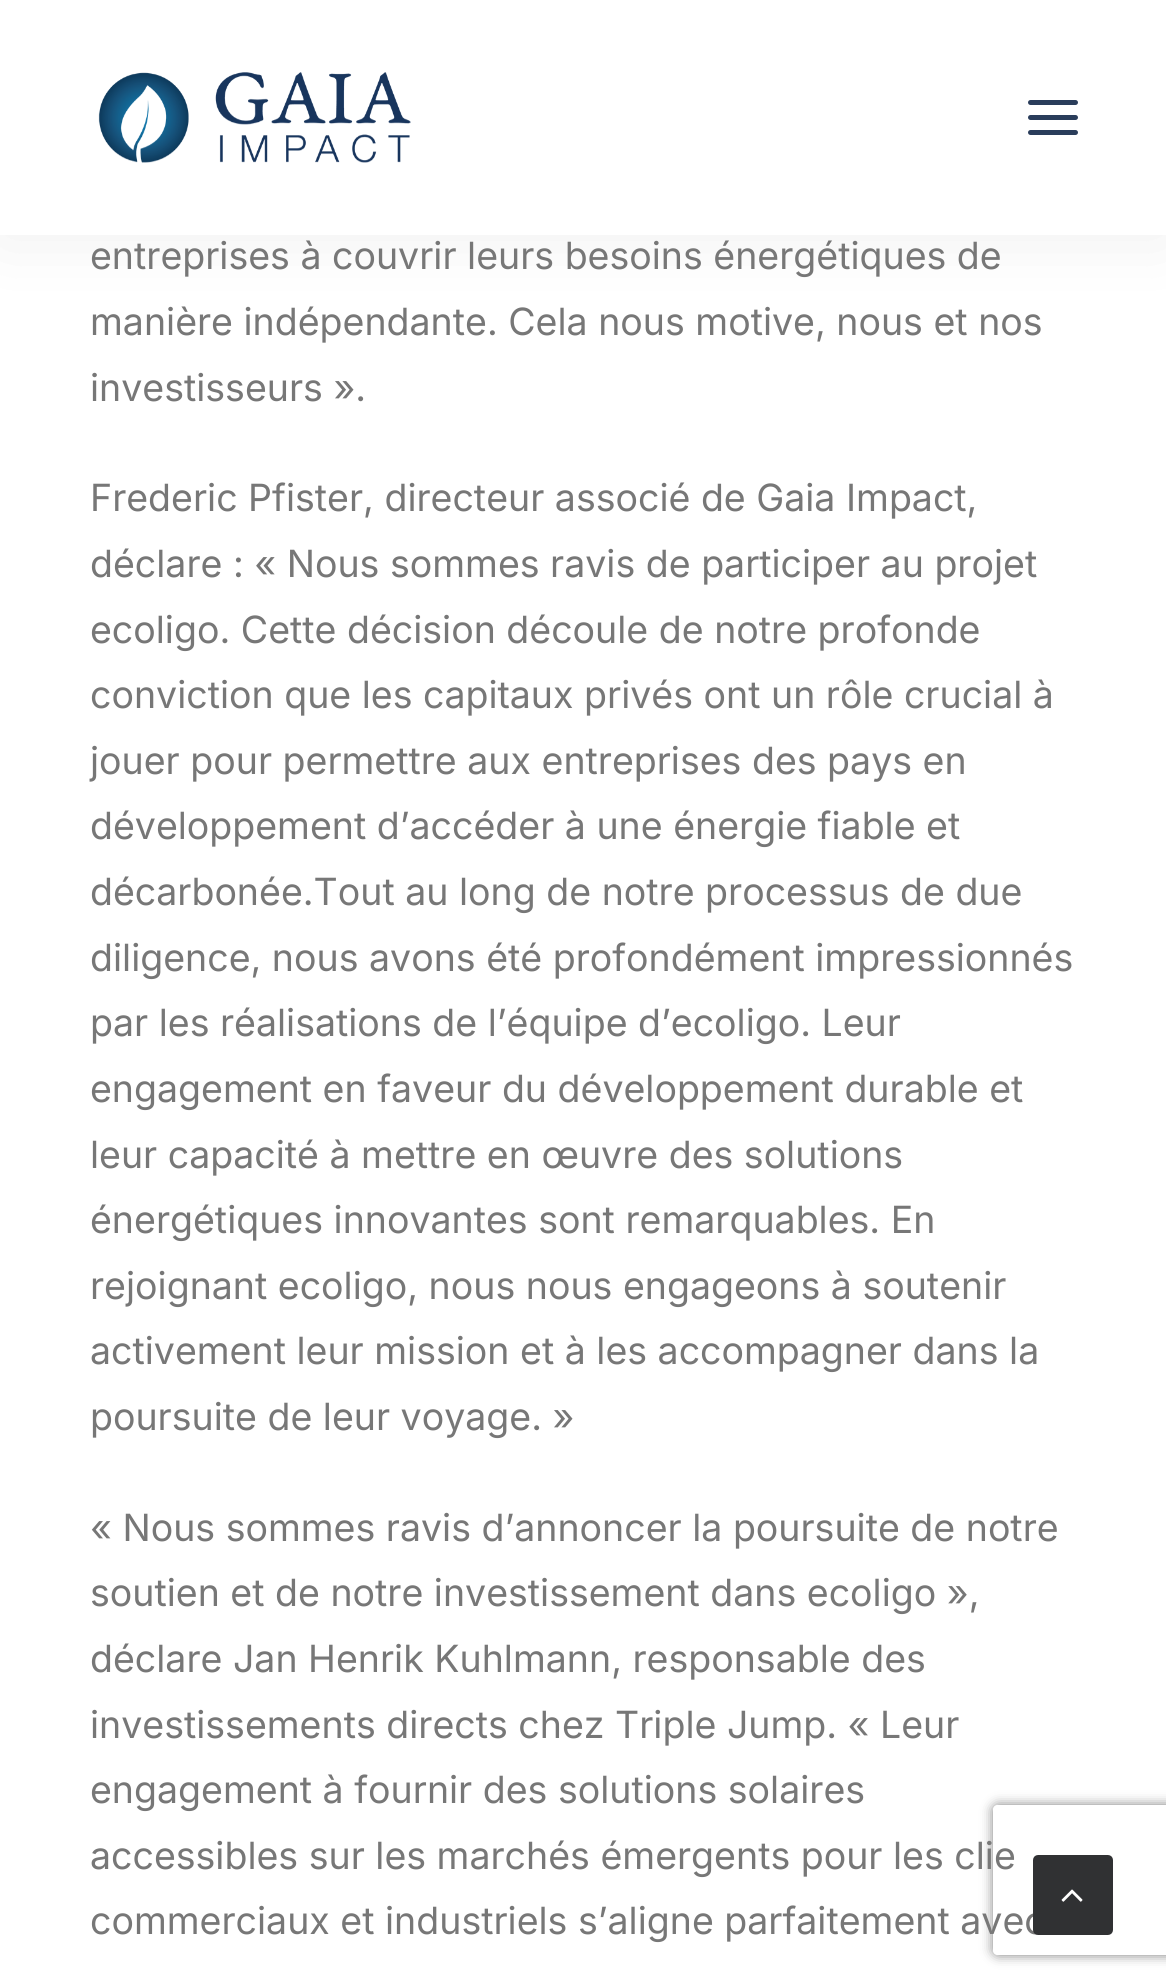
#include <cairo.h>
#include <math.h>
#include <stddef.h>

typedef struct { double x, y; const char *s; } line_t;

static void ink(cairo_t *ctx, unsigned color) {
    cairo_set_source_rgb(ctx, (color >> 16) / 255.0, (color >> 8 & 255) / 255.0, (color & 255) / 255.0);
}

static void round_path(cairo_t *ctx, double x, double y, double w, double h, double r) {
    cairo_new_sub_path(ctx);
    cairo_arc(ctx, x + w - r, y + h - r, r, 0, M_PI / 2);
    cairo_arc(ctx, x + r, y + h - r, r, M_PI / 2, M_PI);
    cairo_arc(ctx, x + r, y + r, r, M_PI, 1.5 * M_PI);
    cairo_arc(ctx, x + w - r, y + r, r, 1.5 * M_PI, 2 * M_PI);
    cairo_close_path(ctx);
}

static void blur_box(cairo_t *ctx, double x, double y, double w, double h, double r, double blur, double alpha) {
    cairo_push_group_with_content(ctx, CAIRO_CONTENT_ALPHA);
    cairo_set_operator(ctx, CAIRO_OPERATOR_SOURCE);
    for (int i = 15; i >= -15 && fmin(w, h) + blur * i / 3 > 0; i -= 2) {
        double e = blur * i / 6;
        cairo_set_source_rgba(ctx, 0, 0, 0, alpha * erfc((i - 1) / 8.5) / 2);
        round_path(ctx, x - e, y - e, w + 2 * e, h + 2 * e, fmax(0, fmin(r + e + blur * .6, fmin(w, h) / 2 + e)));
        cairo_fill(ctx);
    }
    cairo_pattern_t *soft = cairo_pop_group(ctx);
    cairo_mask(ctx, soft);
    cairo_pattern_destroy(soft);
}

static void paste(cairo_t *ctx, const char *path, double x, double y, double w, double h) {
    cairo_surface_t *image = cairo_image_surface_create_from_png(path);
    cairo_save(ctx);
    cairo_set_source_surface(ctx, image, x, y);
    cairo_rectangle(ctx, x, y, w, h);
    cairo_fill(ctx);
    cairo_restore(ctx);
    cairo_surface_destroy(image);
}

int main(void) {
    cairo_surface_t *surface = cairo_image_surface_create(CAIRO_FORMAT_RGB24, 1166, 1988);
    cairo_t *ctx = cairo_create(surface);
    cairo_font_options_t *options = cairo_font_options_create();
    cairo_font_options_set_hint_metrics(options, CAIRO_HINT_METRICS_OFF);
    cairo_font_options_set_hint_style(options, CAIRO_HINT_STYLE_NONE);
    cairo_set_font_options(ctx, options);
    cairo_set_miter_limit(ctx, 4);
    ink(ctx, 0xFFFFFF);
    cairo_paint(ctx);
    ink(ctx, 0x000000);
    blur_box(ctx, 0, 0, 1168, 235, 0, 37.5, 0.07);
    ink(ctx, 0xFFFFFF);
    cairo_rectangle(ctx, 0, 0, 1166, 235);
    cairo_fill(ctx);
    paste(ctx, "media/1.png", 98, 72, 313, 91);
    ink(ctx, 0x2A3D5B);
    round_path(ctx, 1028, 115, 50, 5, 2.5);
    cairo_fill(ctx);
    round_path(ctx, 1028, 100, 50, 5, 2.5);
    cairo_fill(ctx);
    round_path(ctx, 1028, 130, 50, 5, 2.5);
    cairo_fill(ctx);
    cairo_select_font_face(ctx, "Inter", CAIRO_FONT_SLANT_NORMAL, CAIRO_FONT_WEIGHT_NORMAL);
    cairo_set_font_size(ctx, 37.5);
    ink(ctx, 0x777777);
    {
        static const line_t items[] = {
            {90, 269, "entreprises à couvrir leurs besoins énergétiques de"},
            {90, 335, "manière indépendante. Cela nous motive, nous et nos"},
            {90, 401, "investisseurs »."},
            {90, 511, "Frederic Pfister, directeur associé de Gaia Impact,"},
            {90, 577, "déclare : « Nous sommes ravis de participer au projet"},
            {90, 643, "ecoligo. Cette décision découle de notre profonde"},
            {90, 708, "conviction que les capitaux privés ont un rôle crucial à"},
            {90, 774, "jouer pour permettre aux entreprises des pays en"},
            {90, 839, "développement d’accéder à une énergie fiable et"},
            {90, 905, "décarbonée.Tout au long de notre processus de due"},
            {90, 971, "diligence, nous avons été profondément impressionnés"},
            {90, 1036, "par les réalisations de l’équipe d’ecoligo. Leur"},
            {90, 1102, "engagement en faveur du développement durable et"},
            {90, 1168, "leur capacité à mettre en œuvre des solutions"},
            {90, 1233, "énergétiques innovantes sont remarquables. En"},
            {90, 1299, "rejoignant ecoligo, nous nous engageons à soutenir"},
            {90, 1364, "activement leur mission et à les accompagner dans la"},
            {90, 1430, "poursuite de leur voyage. »"},
            {90, 1541, "« Nous sommes ravis d’annoncer la poursuite de notre"},
            {90, 1606, "soutien et de notre investissement dans ecoligo »,"},
            {90, 1672, "déclare Jan Henrik Kuhlmann, responsable des"},
            {90, 1738, "investissements directs chez Triple Jump. « Leur"},
            {90, 1803, "engagement à fournir des solutions solaires"},
            {90, 1869, "accessibles sur les marchés émergents pour les clie"},
            {90, 1934, "commerciaux et industriels s’aligne parfaitement avec"},
        };
        for (size_t i = 0; i < sizeof items / sizeof *items; i++) {
            cairo_move_to(ctx, items[i].x, items[i].y);
            cairo_show_text(ctx, items[i].s);
        }
    }
    cairo_save(ctx);
    cairo_set_fill_rule(ctx, CAIRO_FILL_RULE_EVEN_ODD);
    cairo_new_path(ctx);
    cairo_move_to(ctx, 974, 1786);
    cairo_line_to(ctx, 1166, 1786);
    cairo_line_to(ctx, 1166, 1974);
    cairo_line_to(ctx, 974, 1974);
    cairo_close_path(ctx);
    cairo_move_to(ctx, 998, 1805);
    cairo_line_to(ctx, 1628, 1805);
    cairo_curve_to(ctx, 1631, 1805, 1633, 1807, 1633, 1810);
    cairo_line_to(ctx, 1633, 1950);
    cairo_curve_to(ctx, 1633, 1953, 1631, 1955, 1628, 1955);
    cairo_line_to(ctx, 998, 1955);
    cairo_curve_to(ctx, 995, 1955, 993, 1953, 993, 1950);
    cairo_line_to(ctx, 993, 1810);
    cairo_curve_to(ctx, 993, 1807, 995, 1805, 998, 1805);
    cairo_close_path(ctx);
    cairo_clip(ctx);
    ink(ctx, 0x808080);
    blur_box(ctx, 993, 1805, 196, 150, 5, 6, 1);
    cairo_restore(ctx);
    ink(ctx, 0x303133);
    round_path(ctx, 1034.5, 1856.5, 77, 77, 3.5);
    cairo_fill_preserve(ctx);
    cairo_set_line_width(ctx, 3);
    cairo_stroke(ctx);
    paste(ctx, "media/2.png", 1061, 1889, 22, 13);
    cairo_surface_write_to_png(surface, "image.png");
    cairo_font_options_destroy(options);
    cairo_destroy(ctx);
    cairo_surface_destroy(surface);
    return 0;
}
